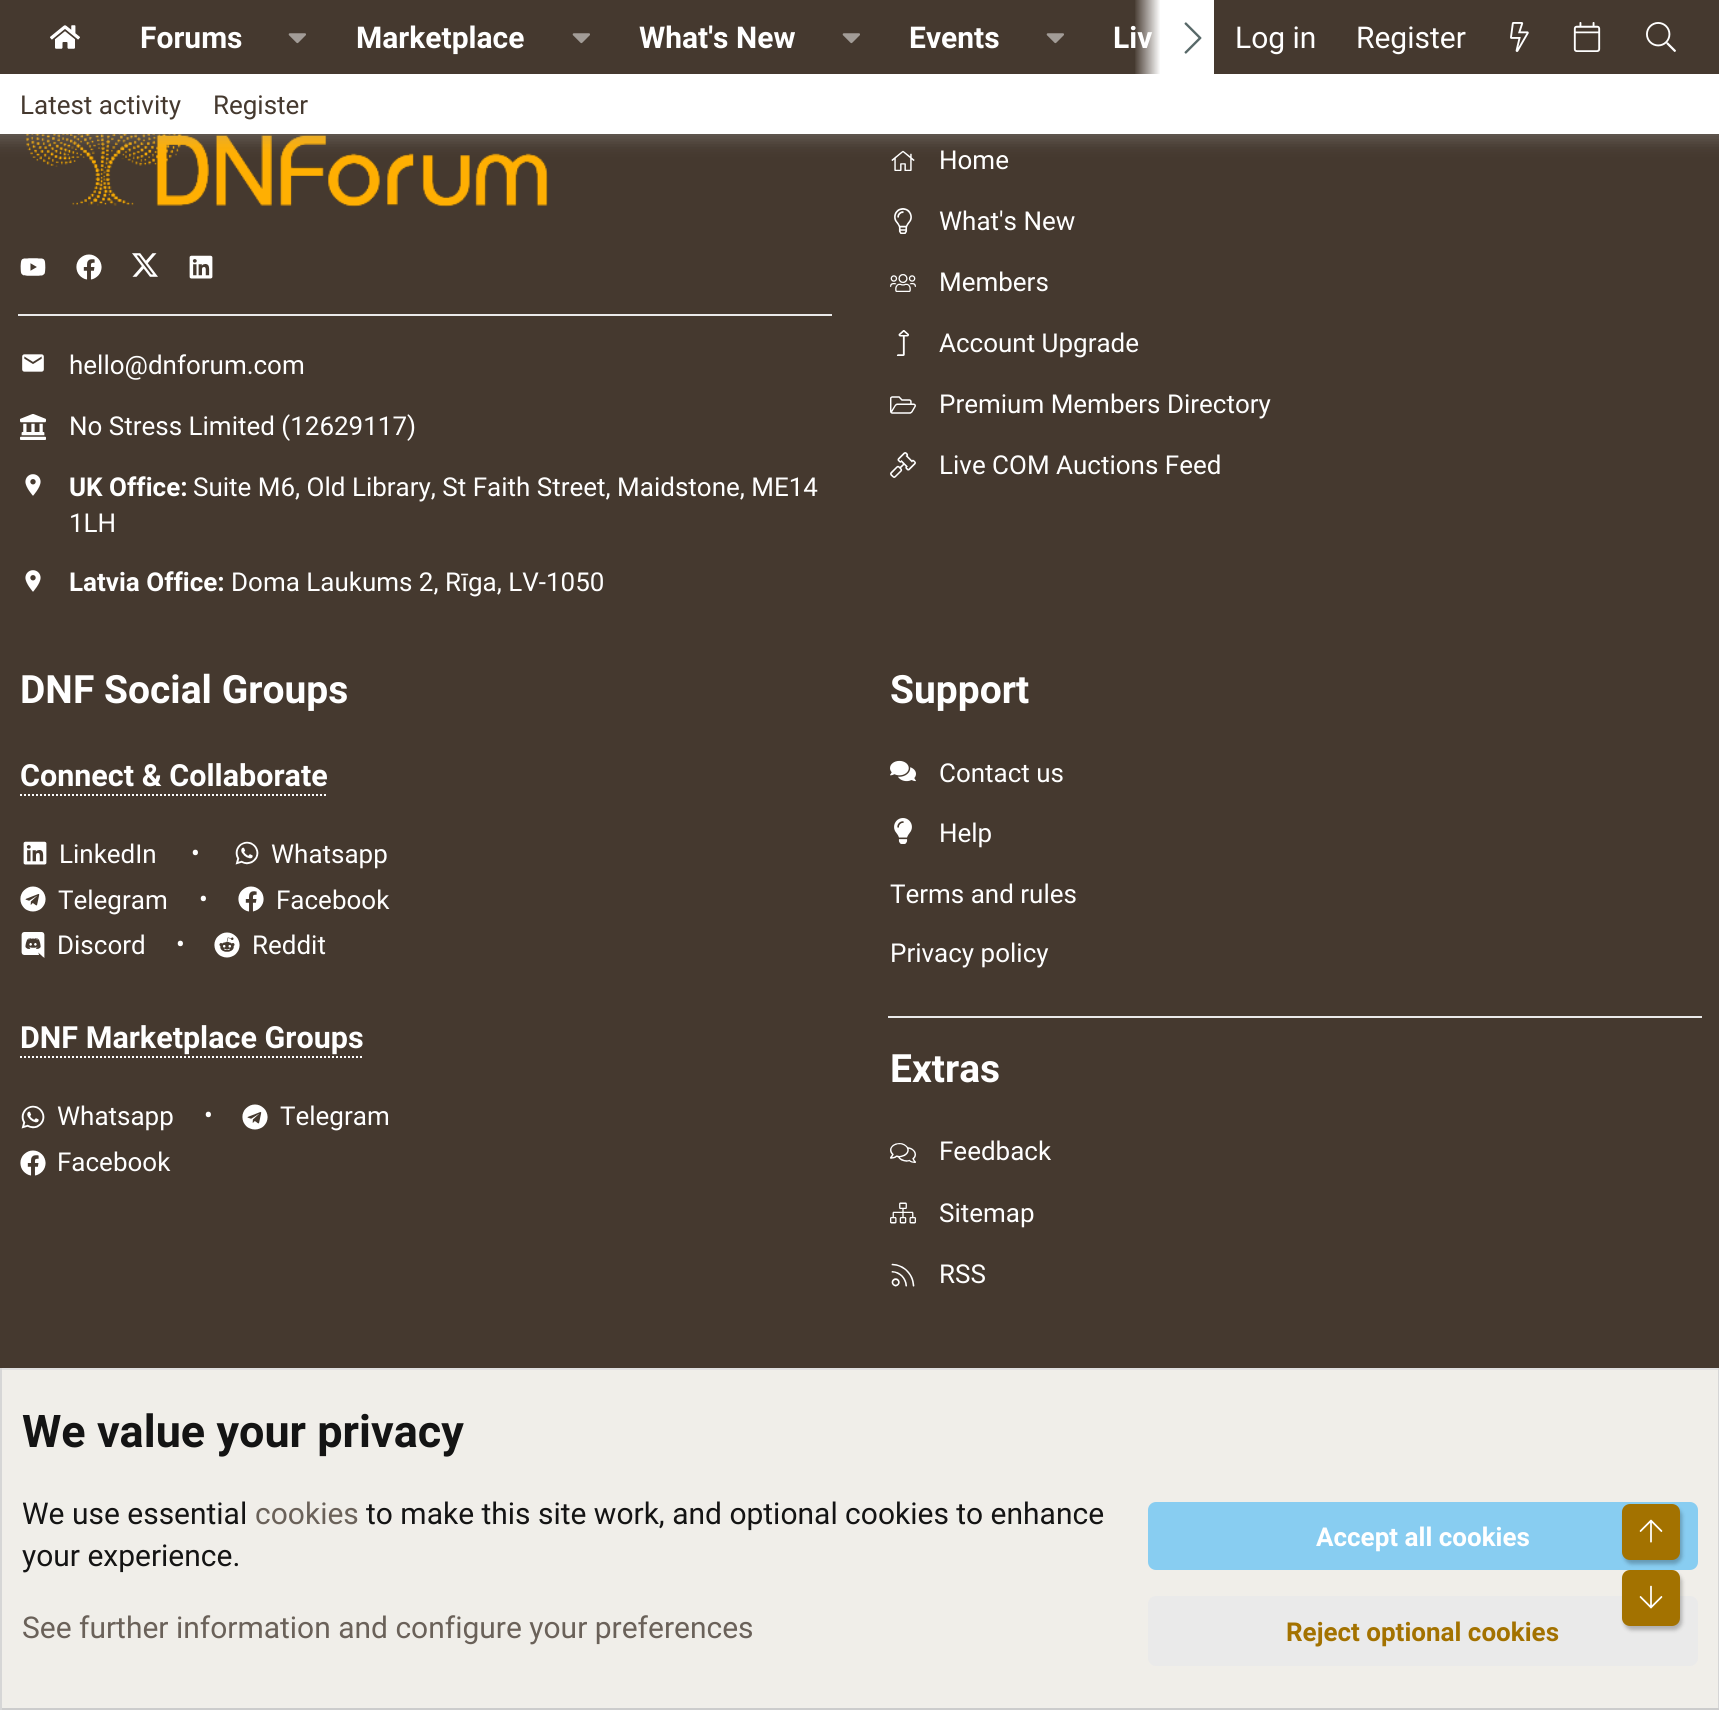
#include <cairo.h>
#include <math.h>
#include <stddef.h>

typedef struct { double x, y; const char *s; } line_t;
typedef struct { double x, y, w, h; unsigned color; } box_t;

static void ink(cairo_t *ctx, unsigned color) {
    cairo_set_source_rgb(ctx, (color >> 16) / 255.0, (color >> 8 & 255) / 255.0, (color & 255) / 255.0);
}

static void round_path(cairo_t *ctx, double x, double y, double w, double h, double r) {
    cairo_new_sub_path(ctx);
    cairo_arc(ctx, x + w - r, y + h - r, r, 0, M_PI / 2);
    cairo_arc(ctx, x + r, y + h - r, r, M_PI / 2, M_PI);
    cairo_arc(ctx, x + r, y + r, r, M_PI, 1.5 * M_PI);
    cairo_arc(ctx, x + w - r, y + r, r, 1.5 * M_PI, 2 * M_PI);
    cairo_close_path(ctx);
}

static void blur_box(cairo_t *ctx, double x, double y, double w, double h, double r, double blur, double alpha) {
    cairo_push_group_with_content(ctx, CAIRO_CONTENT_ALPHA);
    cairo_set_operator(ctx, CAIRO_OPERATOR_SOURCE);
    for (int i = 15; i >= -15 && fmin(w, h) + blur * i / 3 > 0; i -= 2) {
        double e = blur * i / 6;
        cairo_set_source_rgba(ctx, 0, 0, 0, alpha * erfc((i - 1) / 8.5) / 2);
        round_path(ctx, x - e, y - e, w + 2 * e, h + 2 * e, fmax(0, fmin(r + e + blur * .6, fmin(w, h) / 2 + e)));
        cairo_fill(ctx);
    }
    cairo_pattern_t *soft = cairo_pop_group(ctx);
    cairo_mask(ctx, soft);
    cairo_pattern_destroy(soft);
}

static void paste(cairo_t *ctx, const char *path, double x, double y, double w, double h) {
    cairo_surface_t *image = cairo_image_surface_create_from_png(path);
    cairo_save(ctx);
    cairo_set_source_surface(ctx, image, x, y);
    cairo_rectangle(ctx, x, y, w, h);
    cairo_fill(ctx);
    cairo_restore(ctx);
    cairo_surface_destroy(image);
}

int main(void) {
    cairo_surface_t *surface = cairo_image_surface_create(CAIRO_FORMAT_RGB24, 1719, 1710);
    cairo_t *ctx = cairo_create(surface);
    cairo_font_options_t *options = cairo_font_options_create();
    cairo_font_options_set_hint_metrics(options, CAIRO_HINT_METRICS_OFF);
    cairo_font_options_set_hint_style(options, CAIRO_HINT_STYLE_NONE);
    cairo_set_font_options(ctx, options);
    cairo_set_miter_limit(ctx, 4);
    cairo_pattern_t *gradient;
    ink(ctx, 0x45392F);
    cairo_paint(ctx);
    paste(ctx, "media/7.png", 25, 134, 523, 73);
    paste(ctx, "media/15.png", 891, 150, 24, 21);
    ink(ctx, 0xA4A4A4);
    blur_box(ctx, -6, -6, 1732, 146, 0, 8, 0.33);
    ink(ctx, 0x45392F);
    cairo_rectangle(ctx, 0, 0, 1719, 74);
    cairo_fill(ctx);
    paste(ctx, "media/1.png", 50, 25, 30, 24);
    cairo_select_font_face(ctx, "Roboto", CAIRO_FONT_SLANT_NORMAL, CAIRO_FONT_WEIGHT_BOLD);
    cairo_set_font_size(ctx, 30);
    ink(ctx, 0xFFFFFF);
    cairo_move_to(ctx, 140, 48);
    cairo_show_text(ctx, "Forums");
    paste(ctx, "media/2.png", 288, 33, 18, 11);
    cairo_move_to(ctx, 356, 48);
    cairo_show_text(ctx, "Marketplace");
    paste(ctx, "media/2.png", 572, 33, 18, 11);
    cairo_move_to(ctx, 639, 48);
    cairo_show_text(ctx, "What's New");
    paste(ctx, "media/2.png", 842, 33, 18, 11);
    cairo_move_to(ctx, 909, 48);
    cairo_show_text(ctx, "Events");
    paste(ctx, "media/2.png", 1046, 33, 18, 11);
    cairo_move_to(ctx, 1113, 48);
    cairo_show_text(ctx, "Liv");
    gradient = cairo_pattern_create_linear(1134, 37, 1214, 37);
    cairo_pattern_add_color_stop_rgba(gradient, 0, 1, 1, 1, 0);
    cairo_pattern_add_color_stop_rgba(gradient, 0.33, 1, 1, 1, 1);
    cairo_set_source(ctx, gradient);
    cairo_pattern_destroy(gradient);
    cairo_rectangle(ctx, 1135, 0, 79, 74);
    cairo_fill(ctx);
    paste(ctx, "media/3.png", 1184, 22, 18, 32);
    cairo_select_font_face(ctx, "Roboto", CAIRO_FONT_SLANT_NORMAL, CAIRO_FONT_WEIGHT_NORMAL);
    ink(ctx, 0xFFFFFF);
    cairo_move_to(ctx, 1235, 48);
    cairo_show_text(ctx, "Log in");
    cairo_move_to(ctx, 1356, 48);
    cairo_show_text(ctx, "Register");
    paste(ctx, "media/4.png", 1510, 22, 19, 30);
    paste(ctx, "media/5.png", 1573, 22, 28, 30);
    paste(ctx, "media/6.png", 1646, 22, 30, 30);
    cairo_rectangle(ctx, 0, 74, 1719, 60);
    cairo_fill(ctx);
    cairo_set_font_size(ctx, 26);
    ink(ctx, 0x45392F);
    cairo_move_to(ctx, 20, 114);
    cairo_show_text(ctx, "Latest activity");
    cairo_move_to(ctx, 213, 114);
    cairo_show_text(ctx, "Register");
    paste(ctx, "media/8.png", 20, 258, 26, 18);
    paste(ctx, "media/9.png", 76, 254, 26, 26);
    paste(ctx, "media/10.png", 132, 253, 26, 24);
    paste(ctx, "media/11.png", 189, 255, 24, 24);
    ink(ctx, 0xEAEAEA);
    cairo_rectangle(ctx, 18, 314, 814, 2);
    cairo_fill(ctx);
    paste(ctx, "media/12.png", 22, 354, 22, 18);
    ink(ctx, 0xFFFFFF);
    cairo_move_to(ctx, 69, 374);
    cairo_show_text(ctx, "hello@dnforum.com");
    paste(ctx, "media/13.png", 20, 414, 26, 26);
    cairo_move_to(ctx, 69, 435);
    cairo_show_text(ctx, "No Stress Limited (12629117)");
    paste(ctx, "media/14.png", 25, 474, 16, 22);
    cairo_select_font_face(ctx, "Roboto", CAIRO_FONT_SLANT_NORMAL, CAIRO_FONT_WEIGHT_BOLD);
    cairo_move_to(ctx, 69, 496);
    cairo_show_text(ctx, "UK Office:");
    cairo_select_font_face(ctx, "Roboto", CAIRO_FONT_SLANT_NORMAL, CAIRO_FONT_WEIGHT_NORMAL);
    cairo_move_to(ctx, 193, 496);
    cairo_show_text(ctx, "Suite M6, Old Library, St Faith Street, Maidstone, ME14");
    cairo_move_to(ctx, 69, 532);
    cairo_show_text(ctx, "1LH");
    paste(ctx, "media/14.png", 25, 570, 16, 22);
    cairo_select_font_face(ctx, "Roboto", CAIRO_FONT_SLANT_NORMAL, CAIRO_FONT_WEIGHT_BOLD);
    cairo_move_to(ctx, 69, 591);
    cairo_show_text(ctx, "Latvia Office:");
    cairo_select_font_face(ctx, "Roboto", CAIRO_FONT_SLANT_NORMAL, CAIRO_FONT_WEIGHT_NORMAL);
    cairo_move_to(ctx, 231, 591);
    cairo_show_text(ctx, "Doma Laukums 2, R");
    cairo_select_font_face(ctx, "Liberation Sans", CAIRO_FONT_SLANT_NORMAL, CAIRO_FONT_WEIGHT_NORMAL);
    cairo_move_to(ctx, 461, 591);
    cairo_show_text(ctx, "ī");
    cairo_select_font_face(ctx, "Roboto", CAIRO_FONT_SLANT_NORMAL, CAIRO_FONT_WEIGHT_NORMAL);
    cairo_move_to(ctx, 468, 591);
    cairo_show_text(ctx, "ga, LV-1050");
    cairo_move_to(ctx, 939, 169);
    cairo_show_text(ctx, "Home");
    paste(ctx, "media/16.png", 894, 208, 18, 26);
    cairo_move_to(ctx, 939, 230);
    cairo_show_text(ctx, "What's New");
    paste(ctx, "media/17.png", 890, 274, 26, 18);
    cairo_move_to(ctx, 939, 291);
    cairo_show_text(ctx, "Members");
    paste(ctx, "media/18.png", 896, 330, 14, 26);
    cairo_move_to(ctx, 939, 352);
    cairo_show_text(ctx, "Account Upgrade");
    paste(ctx, "media/19.png", 890, 396, 26, 18);
    cairo_move_to(ctx, 939, 413);
    cairo_show_text(ctx, "Premium Members Directory");
    paste(ctx, "media/20.png", 890, 452, 26, 26);
    cairo_move_to(ctx, 939, 474);
    cairo_show_text(ctx, "Live COM Auctions Feed");
    cairo_select_font_face(ctx, "Roboto", CAIRO_FONT_SLANT_NORMAL, CAIRO_FONT_WEIGHT_BOLD);
    cairo_set_font_size(ctx, 39);
    cairo_move_to(ctx, 20, 703);
    cairo_show_text(ctx, "DNF Social Groups");
    cairo_set_font_size(ctx, 30.5);
    cairo_move_to(ctx, 20, 786);
    cairo_show_text(ctx, "Connect & Collaborate");
    cairo_new_path(ctx);
    cairo_move_to(ctx, 20, 795);
    cairo_line_to(ctx, 326, 795);
    cairo_set_dash(ctx, (double[]){2, 2}, 2, 0);
    cairo_stroke(ctx);
    paste(ctx, "media/11.png", 23, 841, 24, 24);
    cairo_select_font_face(ctx, "Roboto", CAIRO_FONT_SLANT_NORMAL, CAIRO_FONT_WEIGHT_NORMAL);
    cairo_set_font_size(ctx, 26);
    cairo_move_to(ctx, 59, 863);
    cairo_show_text(ctx, "LinkedIn");
    cairo_move_to(ctx, 191, 862);
    cairo_show_text(ctx, "•");
    paste(ctx, "media/21.png", 235, 841, 24, 24);
    cairo_move_to(ctx, 271, 863);
    cairo_show_text(ctx, "Whatsapp");
    paste(ctx, "media/22.png", 20, 886, 26, 26);
    cairo_move_to(ctx, 58, 909);
    cairo_show_text(ctx, "Telegram");
    cairo_move_to(ctx, 199, 908);
    cairo_show_text(ctx, "•");
    paste(ctx, "media/23.png", 238, 886, 26, 26);
    cairo_move_to(ctx, 276, 909);
    cairo_show_text(ctx, "Facebook");
    paste(ctx, "media/24.png", 21, 932, 24, 26);
    cairo_move_to(ctx, 57, 954);
    cairo_show_text(ctx, "Discord");
    cairo_move_to(ctx, 176, 953);
    cairo_show_text(ctx, "•");
    paste(ctx, "media/25.png", 214, 932, 26, 26);
    cairo_move_to(ctx, 252, 954);
    cairo_show_text(ctx, "Reddit");
    cairo_select_font_face(ctx, "Roboto", CAIRO_FONT_SLANT_NORMAL, CAIRO_FONT_WEIGHT_BOLD);
    cairo_set_font_size(ctx, 30.5);
    cairo_move_to(ctx, 20, 1048);
    cairo_show_text(ctx, "DNF Marketplace Groups");
    cairo_new_path(ctx);
    cairo_move_to(ctx, 20, 1057);
    cairo_line_to(ctx, 362, 1057);
    cairo_stroke(ctx);
    paste(ctx, "media/26.png", 21, 1105, 24, 24);
    cairo_select_font_face(ctx, "Roboto", CAIRO_FONT_SLANT_NORMAL, CAIRO_FONT_WEIGHT_NORMAL);
    cairo_set_font_size(ctx, 26);
    cairo_move_to(ctx, 57, 1125);
    cairo_show_text(ctx, "Whatsapp");
    cairo_move_to(ctx, 204, 1124);
    cairo_show_text(ctx, "•");
    paste(ctx, "media/27.png", 242, 1104, 26, 26);
    cairo_move_to(ctx, 280, 1125);
    cairo_show_text(ctx, "Telegram");
    paste(ctx, "media/9.png", 20, 1150, 26, 26);
    cairo_move_to(ctx, 57, 1171);
    cairo_show_text(ctx, "Facebook");
    cairo_select_font_face(ctx, "Roboto", CAIRO_FONT_SLANT_NORMAL, CAIRO_FONT_WEIGHT_BOLD);
    cairo_set_font_size(ctx, 39);
    cairo_move_to(ctx, 890, 703);
    cairo_show_text(ctx, "Support");
    paste(ctx, "media/28.png", 890, 760, 26, 22);
    cairo_select_font_face(ctx, "Roboto", CAIRO_FONT_SLANT_NORMAL, CAIRO_FONT_WEIGHT_NORMAL);
    cairo_set_font_size(ctx, 26);
    cairo_move_to(ctx, 939, 782);
    cairo_show_text(ctx, "Contact us");
    paste(ctx, "media/29.png", 894, 818, 18, 26);
    {
        static const line_t items[] = {
            {939, 842, "Help"},
            {890, 903, "Terms and rules"},
            {890, 962, "Privacy policy"},
        };
        for (size_t i = 0; i < sizeof items / sizeof *items; i++) {
            cairo_move_to(ctx, items[i].x, items[i].y);
            cairo_show_text(ctx, items[i].s);
        }
    }
    ink(ctx, 0xEAEAEA);
    cairo_rectangle(ctx, 888, 1016, 814, 2);
    cairo_fill(ctx);
    cairo_select_font_face(ctx, "Roboto", CAIRO_FONT_SLANT_NORMAL, CAIRO_FONT_WEIGHT_BOLD);
    cairo_set_font_size(ctx, 39);
    ink(ctx, 0xFFFFFF);
    cairo_move_to(ctx, 890, 1082);
    cairo_show_text(ctx, "Extras");
    paste(ctx, "media/30.png", 890, 1143, 26, 20);
    cairo_select_font_face(ctx, "Roboto", CAIRO_FONT_SLANT_NORMAL, CAIRO_FONT_WEIGHT_NORMAL);
    cairo_set_font_size(ctx, 26);
    cairo_move_to(ctx, 939, 1160);
    cairo_show_text(ctx, "Feedback");
    paste(ctx, "media/31.png", 890, 1202, 26, 22);
    cairo_move_to(ctx, 939, 1222);
    cairo_show_text(ctx, "Sitemap");
    paste(ctx, "media/32.png", 891, 1263, 24, 24);
    cairo_move_to(ctx, 939, 1283);
    cairo_show_text(ctx, "RSS");
    {
        static const box_t items[] = {
            {2, 1370, 1716, 338, 0xF0EEE9},
            {0, 1368, 1719, 2, 0xE0E0E0},
            {1718, 1368, 1, 342, 0xD6D6D6},
            {0, 1708, 1719, 2, 0xCCCCCC},
            {0, 1368, 2, 342, 0xD6D6D6},
        };
        for (size_t i = 0; i < sizeof items / sizeof *items; i++) {
            ink(ctx, items[i].color);
            cairo_rectangle(ctx, items[i].x, items[i].y, items[i].w, items[i].h);
            cairo_fill(ctx);
        }
    }
    cairo_select_font_face(ctx, "Roboto", CAIRO_FONT_SLANT_NORMAL, CAIRO_FONT_WEIGHT_BOLD);
    cairo_set_font_size(ctx, 45);
    ink(ctx, 0x141414);
    cairo_move_to(ctx, 22, 1447);
    cairo_show_text(ctx, "We value your privacy");
    cairo_select_font_face(ctx, "Roboto", CAIRO_FONT_SLANT_NORMAL, CAIRO_FONT_WEIGHT_NORMAL);
    cairo_set_font_size(ctx, 30);
    cairo_move_to(ctx, 22, 1524);
    cairo_show_text(ctx, "We use essential");
    ink(ctx, 0x6A6159);
    cairo_move_to(ctx, 255, 1524);
    cairo_show_text(ctx, "cookies");
    ink(ctx, 0x141414);
    cairo_move_to(ctx, 366, 1524);
    cairo_show_text(ctx, "to make this site work, and optional cookies to enhance");
    cairo_move_to(ctx, 22, 1566);
    cairo_show_text(ctx, "your experience.");
    ink(ctx, 0x6A6159);
    cairo_move_to(ctx, 22, 1638);
    cairo_show_text(ctx, "See further information and configure your preferences");
    ink(ctx, 0x88CDF1);
    round_path(ctx, 1148, 1502, 550, 68, 8);
    cairo_fill(ctx);
    cairo_select_font_face(ctx, "Roboto", CAIRO_FONT_SLANT_NORMAL, CAIRO_FONT_WEIGHT_BOLD);
    cairo_set_font_size(ctx, 26);
    ink(ctx, 0xFFFFFF);
    cairo_move_to(ctx, 1316, 1546);
    cairo_show_text(ctx, "Accept all cookies");
    ink(ctx, 0xEAEAEA);
    round_path(ctx, 1148, 1596, 550, 70, 8);
    cairo_fill(ctx);
    ink(ctx, 0xA37200);
    cairo_move_to(ctx, 1286, 1641);
    cairo_show_text(ctx, "Reject optional cookies");
    ink(ctx, 0x000000);
    blur_box(ctx, 1624, 1508, 58, 56, 8, 2, 0.25);
    ink(ctx, 0xA37200);
    round_path(ctx, 1622, 1504, 58, 56, 8);
    cairo_fill(ctx);
    paste(ctx, "media/33.png", 1639, 1519, 24, 24);
    ink(ctx, 0x000000);
    blur_box(ctx, 1624, 1574, 58, 56, 8, 2, 0.25);
    ink(ctx, 0xA37200);
    round_path(ctx, 1622, 1570, 58, 56, 8);
    cairo_fill(ctx);
    paste(ctx, "media/34.png", 1639, 1585, 24, 24);
    cairo_surface_write_to_png(surface, "image.png");
    cairo_font_options_destroy(options);
    cairo_destroy(ctx);
    cairo_surface_destroy(surface);
    return 0;
}
